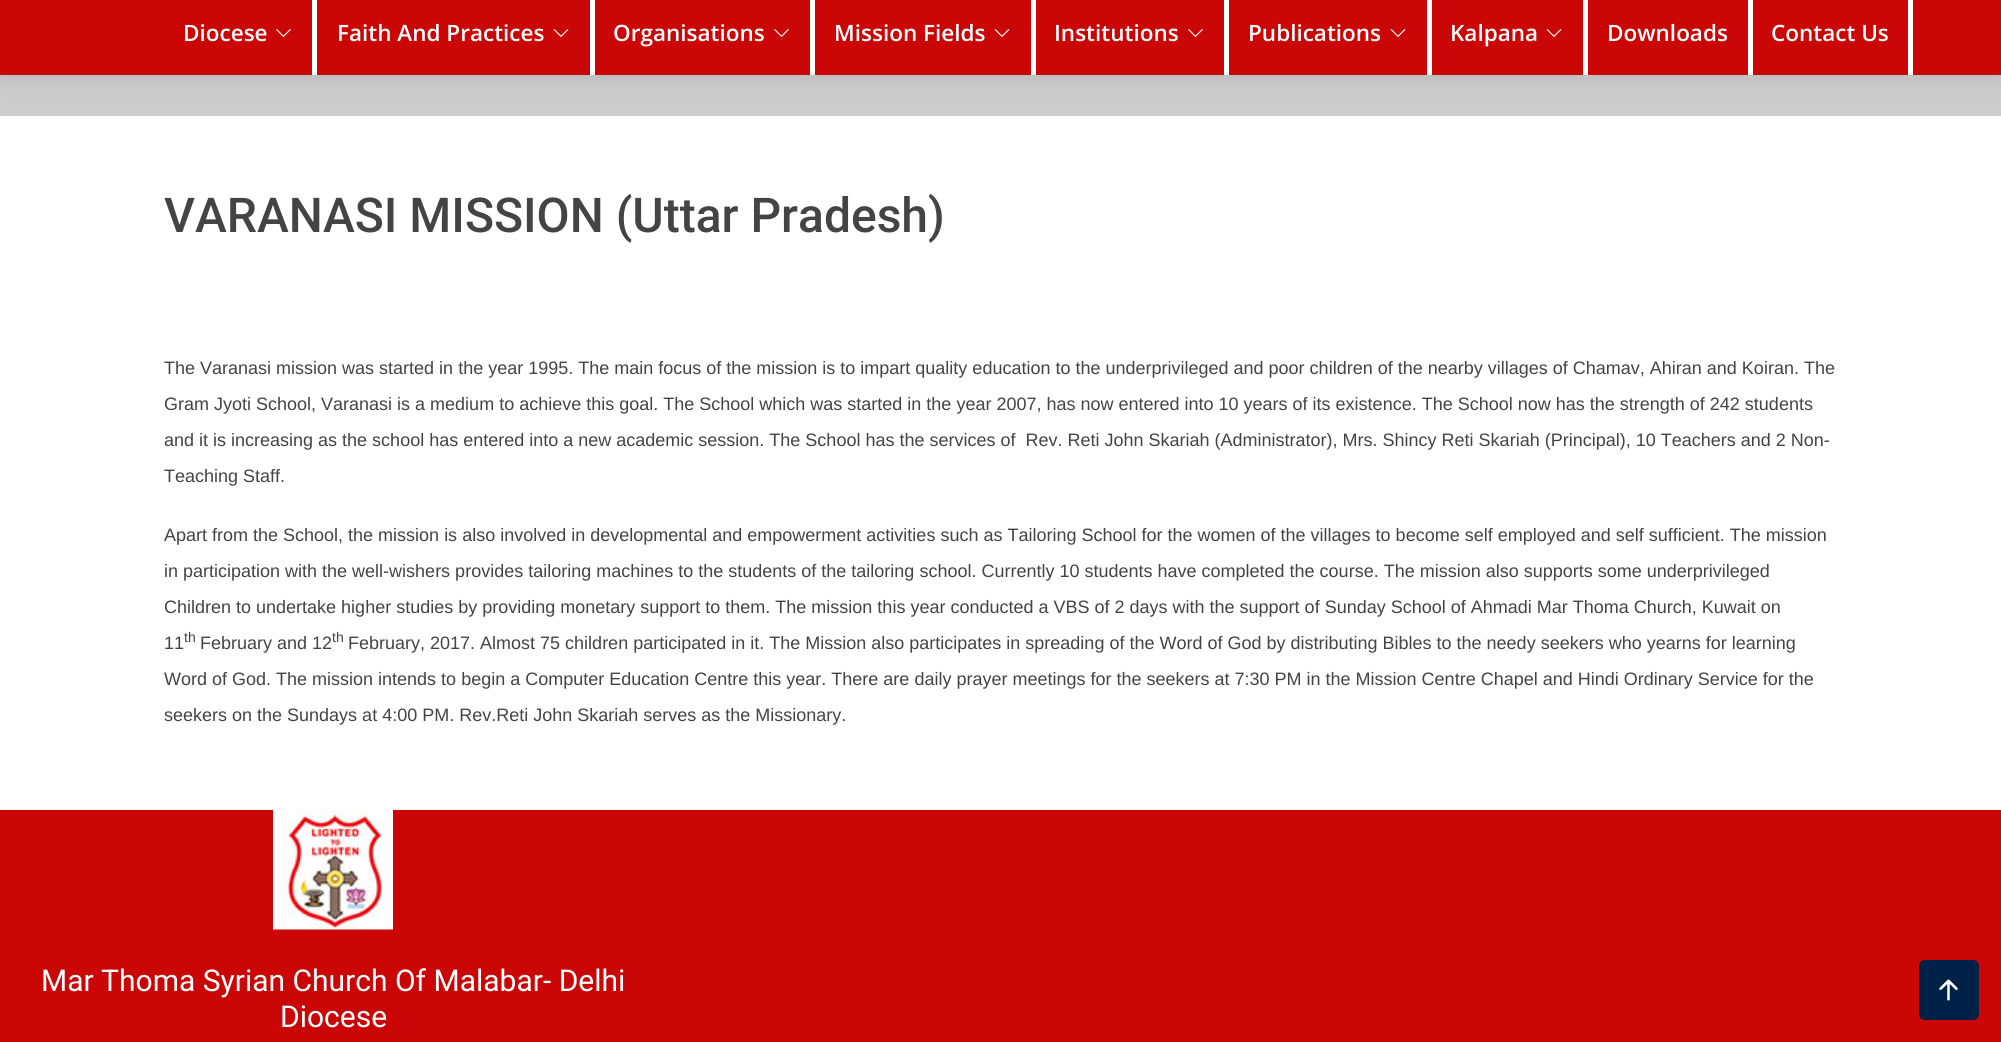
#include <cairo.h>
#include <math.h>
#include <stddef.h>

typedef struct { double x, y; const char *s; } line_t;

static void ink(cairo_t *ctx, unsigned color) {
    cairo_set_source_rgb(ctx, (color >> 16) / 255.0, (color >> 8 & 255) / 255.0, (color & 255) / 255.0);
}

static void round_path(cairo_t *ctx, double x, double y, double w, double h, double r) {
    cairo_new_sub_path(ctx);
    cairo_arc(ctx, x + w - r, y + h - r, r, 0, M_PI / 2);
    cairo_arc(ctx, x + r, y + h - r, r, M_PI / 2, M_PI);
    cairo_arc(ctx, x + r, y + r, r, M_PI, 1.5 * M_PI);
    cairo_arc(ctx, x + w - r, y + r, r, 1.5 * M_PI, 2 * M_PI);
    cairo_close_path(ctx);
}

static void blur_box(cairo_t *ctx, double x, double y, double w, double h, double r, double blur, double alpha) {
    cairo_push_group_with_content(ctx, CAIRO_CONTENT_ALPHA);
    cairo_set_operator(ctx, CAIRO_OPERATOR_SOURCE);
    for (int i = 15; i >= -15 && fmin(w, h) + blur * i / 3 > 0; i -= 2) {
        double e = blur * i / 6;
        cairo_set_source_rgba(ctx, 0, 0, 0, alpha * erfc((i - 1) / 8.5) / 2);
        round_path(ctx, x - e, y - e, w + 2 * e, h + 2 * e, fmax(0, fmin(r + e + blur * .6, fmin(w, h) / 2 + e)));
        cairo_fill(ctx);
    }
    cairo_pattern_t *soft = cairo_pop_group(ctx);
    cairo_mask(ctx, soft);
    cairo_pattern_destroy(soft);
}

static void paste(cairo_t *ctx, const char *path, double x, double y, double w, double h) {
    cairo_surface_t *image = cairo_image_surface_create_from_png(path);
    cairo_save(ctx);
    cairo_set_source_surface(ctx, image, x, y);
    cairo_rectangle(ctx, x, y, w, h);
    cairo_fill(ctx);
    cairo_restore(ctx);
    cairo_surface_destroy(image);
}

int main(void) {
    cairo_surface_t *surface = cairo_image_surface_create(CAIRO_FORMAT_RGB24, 2001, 1042);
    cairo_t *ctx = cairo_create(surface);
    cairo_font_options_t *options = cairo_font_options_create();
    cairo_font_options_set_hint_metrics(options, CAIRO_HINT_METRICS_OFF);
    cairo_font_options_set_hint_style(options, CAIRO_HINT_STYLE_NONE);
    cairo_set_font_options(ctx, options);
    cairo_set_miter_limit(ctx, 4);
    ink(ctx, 0xFFFFFF);
    cairo_paint(ctx);
    ink(ctx, 0xCCCCCC);
    cairo_rectangle(ctx, 0, 75, 2001, 41);
    cairo_fill(ctx);
    ink(ctx, 0x000000);
    blur_box(ctx, 0, 3, 2001, 75, 0, 11, 0.1);
    ink(ctx, 0xCA0606);
    cairo_rectangle(ctx, 0, 0, 2001, 75);
    cairo_fill(ctx);
    ink(ctx, 0xFFFFFF);
    cairo_rectangle(ctx, 312, 0, 5, 75);
    cairo_fill(ctx);
    cairo_select_font_face(ctx, "Open Sans SemiBold", CAIRO_FONT_SLANT_NORMAL, CAIRO_FONT_WEIGHT_NORMAL);
    cairo_set_font_size(ctx, 22.5);
    cairo_move_to(ctx, 183, 41);
    cairo_show_text(ctx, "Diocese");
    paste(ctx, "media/1.png", 276, 29, 15, 8);
    cairo_rectangle(ctx, 590, 0, 5, 75);
    cairo_fill(ctx);
    cairo_move_to(ctx, 337, 41);
    cairo_show_text(ctx, "Faith And Practices");
    paste(ctx, "media/2.png", 553, 29, 16, 8);
    cairo_rectangle(ctx, 810, 0, 5, 75);
    cairo_fill(ctx);
    cairo_move_to(ctx, 613, 41);
    cairo_show_text(ctx, "Organisations");
    paste(ctx, "media/1.png", 774, 29, 15, 8);
    cairo_rectangle(ctx, 1031, 0, 5, 75);
    cairo_fill(ctx);
    cairo_move_to(ctx, 834, 41);
    cairo_show_text(ctx, "Mission Fields");
    paste(ctx, "media/2.png", 994, 29, 16, 8);
    cairo_rectangle(ctx, 1224, 0, 5, 75);
    cairo_fill(ctx);
    cairo_move_to(ctx, 1054, 41);
    cairo_show_text(ctx, "Institutions");
    paste(ctx, "media/1.png", 1188, 29, 15, 8);
    cairo_rectangle(ctx, 1427, 0, 5, 75);
    cairo_fill(ctx);
    cairo_move_to(ctx, 1248, 41);
    cairo_show_text(ctx, "Publications");
    paste(ctx, "media/2.png", 1390, 29, 16, 8);
    cairo_rectangle(ctx, 1583, 0, 5, 75);
    cairo_fill(ctx);
    cairo_move_to(ctx, 1450, 41);
    cairo_show_text(ctx, "Kalpana");
    paste(ctx, "media/2.png", 1546, 29, 16, 8);
    cairo_rectangle(ctx, 1748, 0, 5, 75);
    cairo_fill(ctx);
    cairo_move_to(ctx, 1607, 41);
    cairo_show_text(ctx, "Downloads");
    cairo_rectangle(ctx, 1908, 0, 5, 75);
    cairo_fill(ctx);
    cairo_move_to(ctx, 1771, 41);
    cairo_show_text(ctx, "Contact Us");
    cairo_select_font_face(ctx, "Roboto Medium", CAIRO_FONT_SLANT_NORMAL, CAIRO_FONT_WEIGHT_NORMAL);
    cairo_set_font_size(ctx, 48);
    ink(ctx, 0x444444);
    cairo_move_to(ctx, 164, 232);
    cairo_show_text(ctx, "VARANASI MISSION (Uttar Pradesh)");
    cairo_select_font_face(ctx, "Liberation Sans", CAIRO_FONT_SLANT_NORMAL, CAIRO_FONT_WEIGHT_NORMAL);
    cairo_set_font_size(ctx, 18);
    {
        static const line_t items[] = {
            {164, 374, "The Varanasi mission was started in the year 1995. The main focus of the mission is to impart quality education to the underprivileged and poor children of the nearby villages of Chamav, Ahiran and Koiran. The"},
            {164, 410, "Gram Jyoti School, Varanasi is a medium to achieve this goal. The School which was started in the year 2007, has now entered into 10 years of its existence. The School now has the strength of 242 students"},
            {164, 446, "and it is increasing as the school has entered into a new academic session. The School has the services of  Rev. Reti John Skariah (Administrator), Mrs. Shincy Reti Skariah (Principal), 10 Teachers and 2 Non-"},
            {164, 482, "Teaching Staff."},
            {164, 541, "Apart from the School, the mission is also involved in developmental and empowerment activities such as Tailoring School for the women of the villages to become self employed and self sufficient. The mission"},
            {164, 577, "in participation with the well-wishers provides tailoring machines to the students of the tailoring school. Currently 10 students have completed the course. The mission also supports some underprivileged"},
            {164, 613, "Children to undertake higher studies by providing monetary support to them. The mission this year conducted a VBS of 2 days with the support of Sunday School of Ahmadi Mar Thoma Church, Kuwait on"},
            {164, 649, "11"},
        };
        for (size_t i = 0; i < sizeof items / sizeof *items; i++) {
            cairo_move_to(ctx, items[i].x, items[i].y);
            cairo_show_text(ctx, items[i].s);
        }
    }
    cairo_set_font_size(ctx, 14);
    cairo_move_to(ctx, 184, 642);
    cairo_show_text(ctx, "th");
    cairo_set_font_size(ctx, 18);
    cairo_move_to(ctx, 200, 649);
    cairo_show_text(ctx, "February and 12");
    cairo_set_font_size(ctx, 14);
    cairo_move_to(ctx, 332, 642);
    cairo_show_text(ctx, "th");
    cairo_set_font_size(ctx, 18);
    {
        static const line_t items[] = {
            {348, 649, "February, 2017. Almost 75 children participated in it. The Mission also participates in spreading of the Word of God by distributing Bibles to the needy seekers who yearns for learning"},
            {164, 685, "Word of God. The mission intends to begin a Computer Education Centre this year. There are daily prayer meetings for the seekers at 7:30 PM in the Mission Centre Chapel and Hindi Ordinary Service for the"},
            {164, 721, "seekers on the Sundays at 4:00 PM. Rev.Reti John Skariah serves as the Missionary."},
        };
        for (size_t i = 0; i < sizeof items / sizeof *items; i++) {
            cairo_move_to(ctx, items[i].x, items[i].y);
            cairo_show_text(ctx, items[i].s);
        }
    }
    ink(ctx, 0xCA0606);
    cairo_rectangle(ctx, 0, 810, 2001, 232);
    cairo_fill(ctx);
    paste(ctx, "media/3.png", 273, 809, 120, 121);
    cairo_select_font_face(ctx, "Roboto", CAIRO_FONT_SLANT_NORMAL, CAIRO_FONT_WEIGHT_NORMAL);
    cairo_set_font_size(ctx, 30);
    ink(ctx, 0xFFFFFF);
    cairo_move_to(ctx, 41, 991);
    cairo_show_text(ctx, "Mar Thoma Syrian Church Of Malabar- Delhi");
    cairo_move_to(ctx, 280, 1027);
    cairo_show_text(ctx, "Diocese");
    ink(ctx, 0x002147);
    round_path(ctx, 1919, 960, 60, 60, 6);
    cairo_fill(ctx);
    paste(ctx, "media/4.png", 1939, 979, 19, 22);
    cairo_surface_write_to_png(surface, "image.png");
    cairo_font_options_destroy(options);
    cairo_destroy(ctx);
    cairo_surface_destroy(surface);
    return 0;
}
